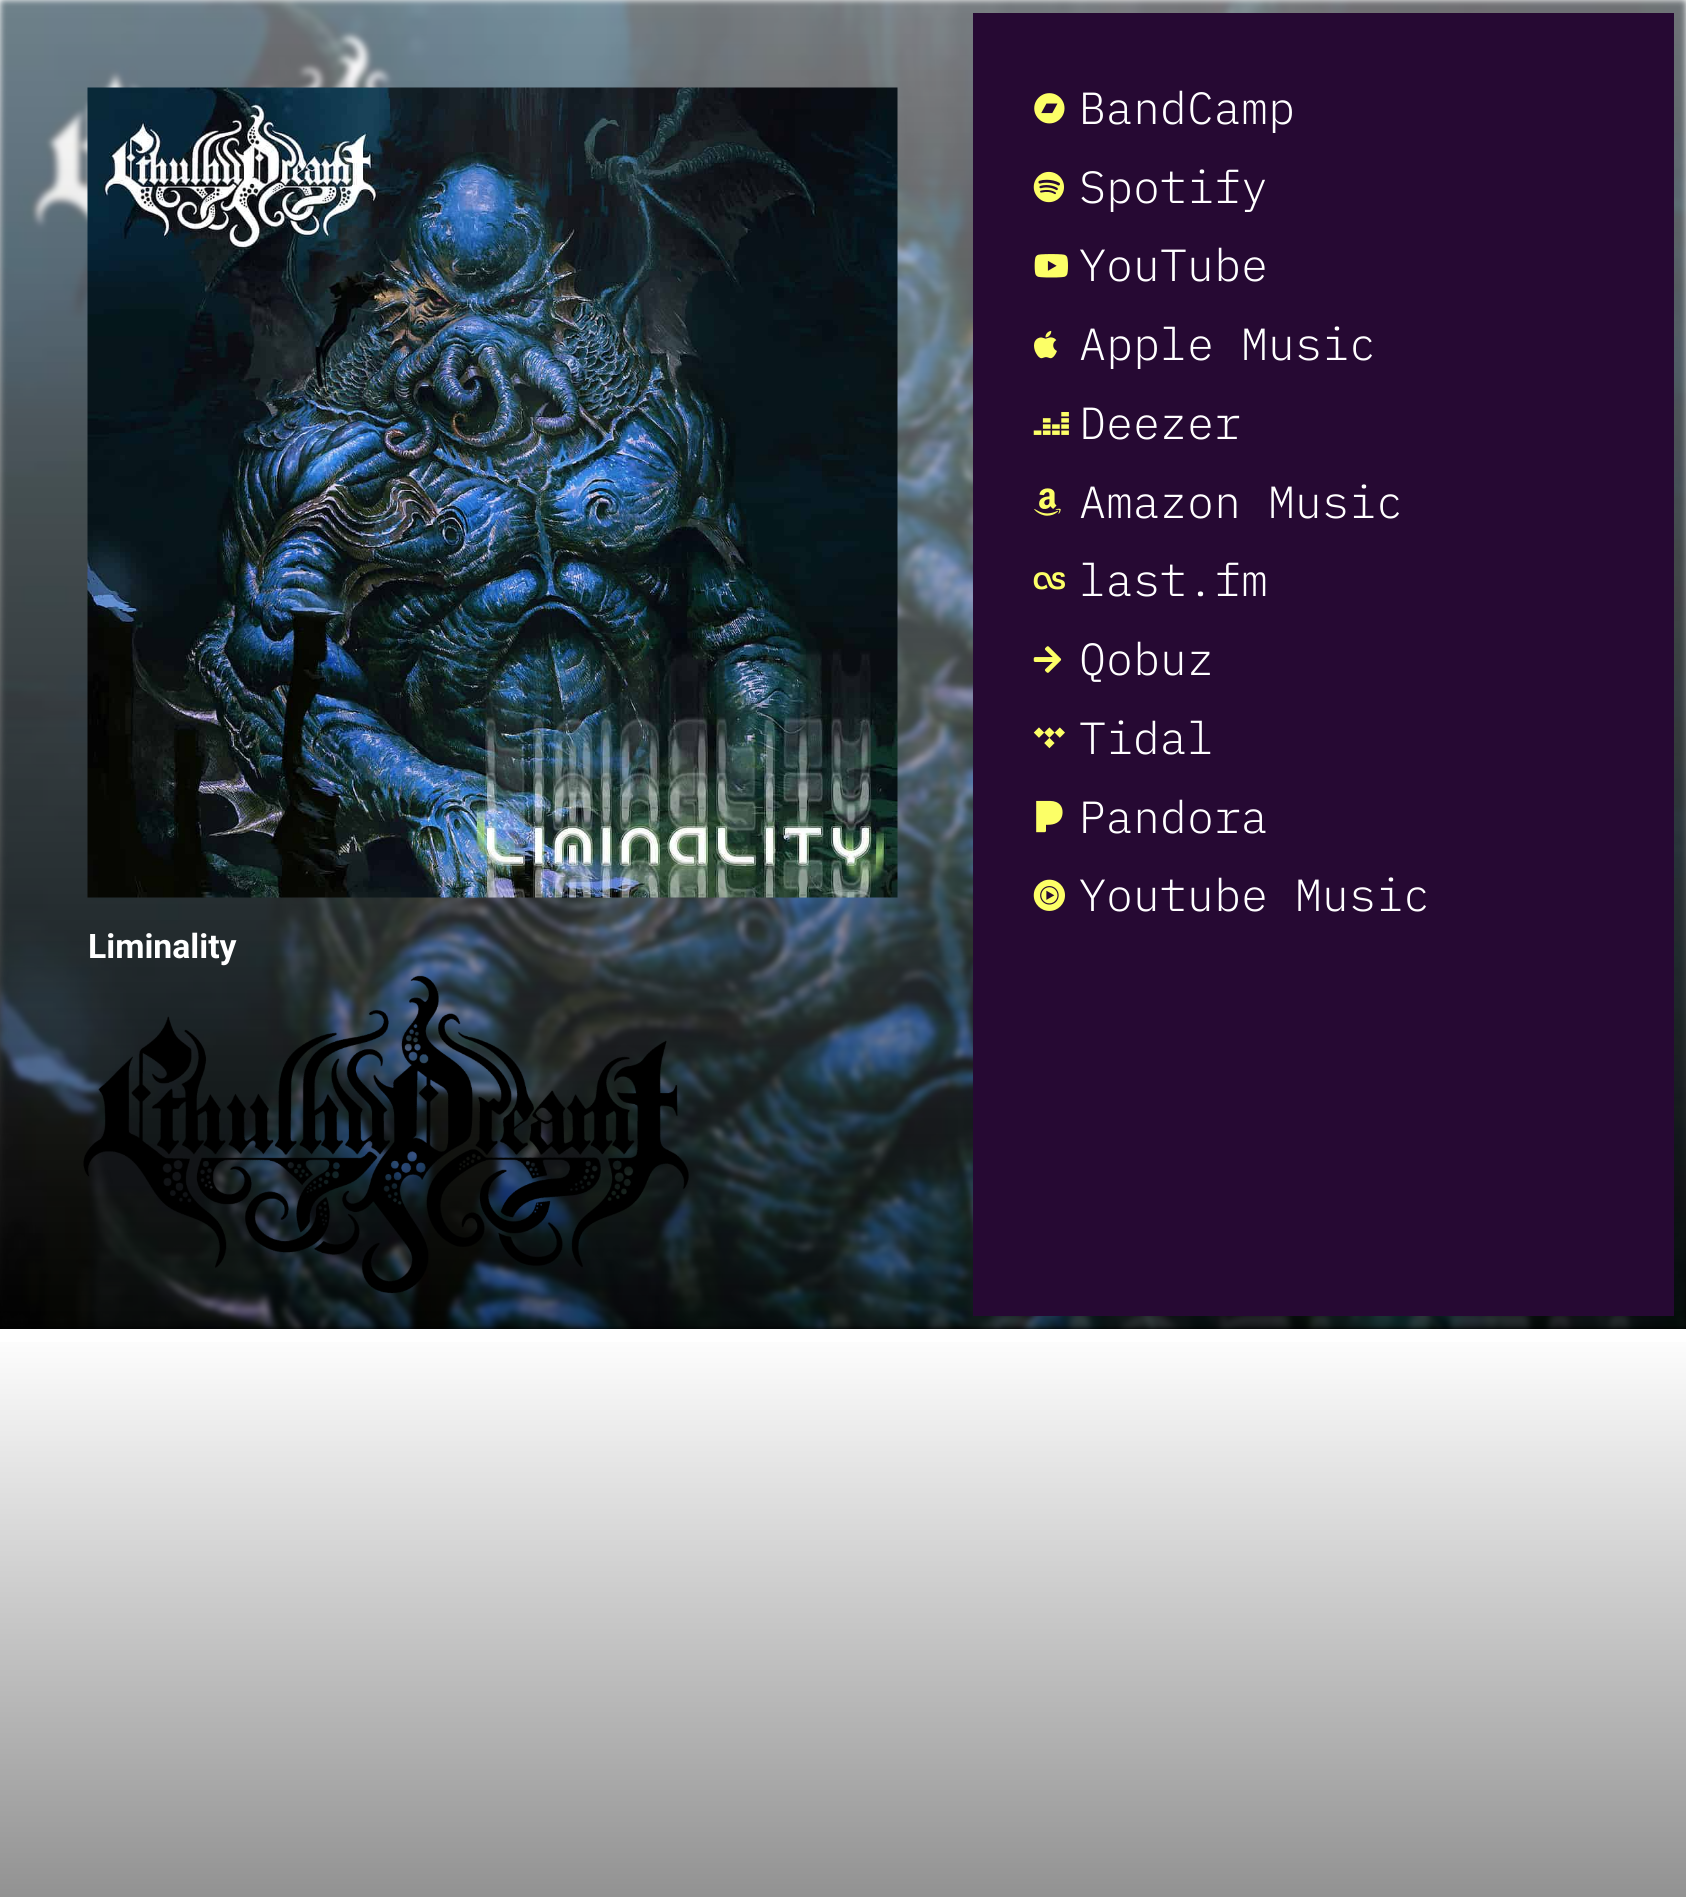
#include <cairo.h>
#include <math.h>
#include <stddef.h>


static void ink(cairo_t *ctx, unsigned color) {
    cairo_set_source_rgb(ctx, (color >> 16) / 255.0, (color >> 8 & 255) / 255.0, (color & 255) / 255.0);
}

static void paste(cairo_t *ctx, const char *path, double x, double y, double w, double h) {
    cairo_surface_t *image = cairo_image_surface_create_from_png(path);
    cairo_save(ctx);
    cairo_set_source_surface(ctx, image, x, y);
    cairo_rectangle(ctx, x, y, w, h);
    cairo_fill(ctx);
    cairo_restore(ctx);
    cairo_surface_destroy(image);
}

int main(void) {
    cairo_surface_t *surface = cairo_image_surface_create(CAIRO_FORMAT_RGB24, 1686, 1897);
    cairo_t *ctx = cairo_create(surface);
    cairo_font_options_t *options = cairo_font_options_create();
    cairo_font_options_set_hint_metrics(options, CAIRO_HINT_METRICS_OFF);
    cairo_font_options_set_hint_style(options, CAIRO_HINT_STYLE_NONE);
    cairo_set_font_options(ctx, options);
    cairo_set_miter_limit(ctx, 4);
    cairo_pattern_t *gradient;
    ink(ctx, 0xFFFFFF);
    cairo_paint(ctx);
    gradient = cairo_pattern_create_linear(843, 0, 843, 1329);
    cairo_pattern_add_color_stop_rgba(gradient, 0, 1, 1, 1, 1);
    cairo_pattern_add_color_stop_rgba(gradient, 1, 0, 0, 0, 1);
    cairo_set_source(ctx, gradient);
    cairo_pattern_destroy(gradient);
    cairo_rectangle(ctx, 0, 13, 1686, 1316);
    cairo_fill(ctx);
    gradient = cairo_pattern_create_linear(843, 1329, 843, 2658);
    cairo_pattern_add_color_stop_rgba(gradient, 0, 1, 1, 1, 1);
    cairo_pattern_add_color_stop_rgba(gradient, 1, 0, 0, 0, 1);
    cairo_set_source(ctx, gradient);
    cairo_pattern_destroy(gradient);
    cairo_rectangle(ctx, 0, 1342, 1686, 555);
    cairo_fill(ctx);
    paste(ctx, "media/1.png", 0, 0, 1686, 1329);
    ink(ctx, 0x260933);
    cairo_rectangle(ctx, 973, 13, 701, 1303);
    cairo_fill(ctx);
    paste(ctx, "media/2.png", 1034, 93, 31, 31);
    cairo_select_font_face(ctx, "IBM Plex Mono Light", CAIRO_FONT_SLANT_NORMAL, CAIRO_FONT_WEIGHT_NORMAL);
    cairo_set_font_size(ctx, 45);
    ink(ctx, 0xFFFFFF);
    cairo_move_to(ctx, 1079, 124);
    cairo_show_text(ctx, "BandCamp");
    paste(ctx, "media/3.png", 1033, 171, 31, 32);
    cairo_move_to(ctx, 1079, 203);
    cairo_show_text(ctx, "Spotify");
    paste(ctx, "media/4.png", 1034, 254, 34, 24);
    cairo_move_to(ctx, 1079, 281);
    cairo_show_text(ctx, "YouTube");
    paste(ctx, "media/5.png", 1034, 330, 23, 29);
    cairo_move_to(ctx, 1079, 360);
    cairo_show_text(ctx, "Apple Music");
    paste(ctx, "media/6.png", 1033, 412, 36, 23);
    cairo_move_to(ctx, 1079, 439);
    cairo_show_text(ctx, "Deezer");
    paste(ctx, "media/7.png", 1034, 488, 27, 28);
    cairo_move_to(ctx, 1079, 518);
    cairo_show_text(ctx, "Amazon Music");
    paste(ctx, "media/8.png", 1033, 572, 32, 18);
    cairo_move_to(ctx, 1079, 596);
    cairo_show_text(ctx, "last.fm");
    paste(ctx, "media/9.png", 1033, 646, 29, 27);
    cairo_move_to(ctx, 1079, 675);
    cairo_show_text(ctx, "Qobuz");
    paste(ctx, "media/10.png", 1033, 727, 32, 22);
    cairo_move_to(ctx, 1079, 754);
    cairo_show_text(ctx, "Tidal");
    paste(ctx, "media/11.png", 1036, 800, 27, 33);
    cairo_move_to(ctx, 1079, 833);
    cairo_show_text(ctx, "Pandora");
    paste(ctx, "media/12.png", 1033, 879, 32, 32);
    cairo_move_to(ctx, 1079, 911);
    cairo_show_text(ctx, "Youtube Music");
    paste(ctx, "media/13.png", 87, 87, 811, 811);
    cairo_select_font_face(ctx, "Roboto", CAIRO_FONT_SLANT_NORMAL, CAIRO_FONT_WEIGHT_BOLD);
    cairo_set_font_size(ctx, 33.75);
    cairo_move_to(ctx, 88, 958);
    cairo_show_text(ctx, "Liminality");
    paste(ctx, "media/14.png", 83, 975, 606, 318);
    cairo_surface_write_to_png(surface, "image.png");
    cairo_font_options_destroy(options);
    cairo_destroy(ctx);
    cairo_surface_destroy(surface);
    return 0;
}
